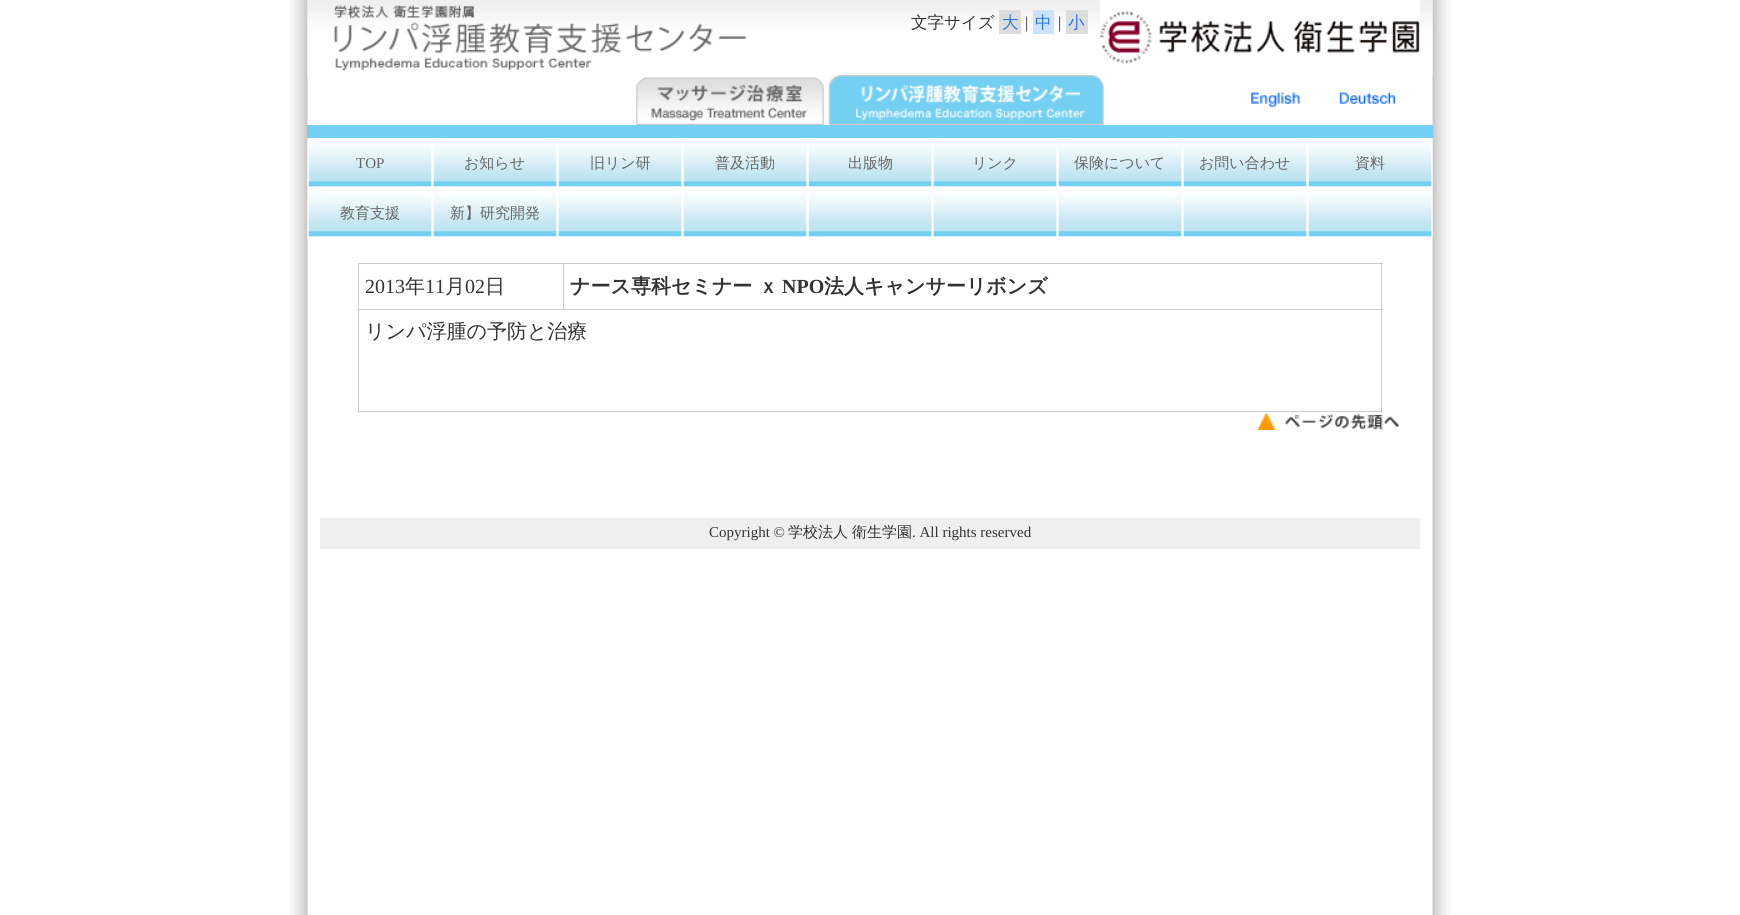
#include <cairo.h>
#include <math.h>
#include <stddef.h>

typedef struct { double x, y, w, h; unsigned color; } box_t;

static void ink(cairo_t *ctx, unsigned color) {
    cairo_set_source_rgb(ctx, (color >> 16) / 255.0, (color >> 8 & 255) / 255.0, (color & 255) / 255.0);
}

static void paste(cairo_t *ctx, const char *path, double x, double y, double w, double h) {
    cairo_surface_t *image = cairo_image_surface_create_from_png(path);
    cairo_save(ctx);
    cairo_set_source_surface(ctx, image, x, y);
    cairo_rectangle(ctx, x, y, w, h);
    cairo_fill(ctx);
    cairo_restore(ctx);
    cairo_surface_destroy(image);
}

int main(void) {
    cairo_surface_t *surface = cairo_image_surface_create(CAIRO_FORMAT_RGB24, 1740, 915);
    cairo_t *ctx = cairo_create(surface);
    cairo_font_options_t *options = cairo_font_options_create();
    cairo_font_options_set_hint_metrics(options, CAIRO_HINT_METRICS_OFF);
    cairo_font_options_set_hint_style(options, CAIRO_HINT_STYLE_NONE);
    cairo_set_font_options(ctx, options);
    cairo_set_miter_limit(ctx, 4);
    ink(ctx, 0xFFFFFF);
    cairo_paint(ctx);
    paste(ctx, "media/1.png", 289, 0, 1162, 915);
    paste(ctx, "media/2.png", 307, 0, 1126, 75);
    paste(ctx, "media/3.png", 333, 5, 414, 66);
    cairo_select_font_face(ctx, "WenQuanYi Zen Hei Medium", CAIRO_FONT_SLANT_NORMAL, CAIRO_FONT_WEIGHT_NORMAL);
    cairo_set_font_size(ctx, 16.5);
    ink(ctx, 0x333333);
    cairo_move_to(ctx, 911, 28);
    cairo_show_text(ctx, "文字サイズ");
    ink(ctx, 0xDDDDDD);
    cairo_rectangle(ctx, 999, 10, 22, 24);
    cairo_fill(ctx);
    ink(ctx, 0x2B72DD);
    cairo_move_to(ctx, 1002, 28);
    cairo_show_text(ctx, "大");
    cairo_select_font_face(ctx, "Liberation Serif", CAIRO_FONT_SLANT_NORMAL, CAIRO_FONT_WEIGHT_NORMAL);
    ink(ctx, 0x333333);
    cairo_move_to(ctx, 1025, 28);
    cairo_show_text(ctx, "|");
    ink(ctx, 0xCBE2FC);
    cairo_rectangle(ctx, 1033, 10, 21, 24);
    cairo_fill(ctx);
    cairo_select_font_face(ctx, "WenQuanYi Zen Hei Medium", CAIRO_FONT_SLANT_NORMAL, CAIRO_FONT_WEIGHT_NORMAL);
    ink(ctx, 0x2B72DD);
    cairo_move_to(ctx, 1035, 28);
    cairo_show_text(ctx, "中");
    cairo_select_font_face(ctx, "Liberation Serif", CAIRO_FONT_SLANT_NORMAL, CAIRO_FONT_WEIGHT_NORMAL);
    ink(ctx, 0x333333);
    cairo_move_to(ctx, 1058, 28);
    cairo_show_text(ctx, "|");
    ink(ctx, 0xDDDDDD);
    cairo_rectangle(ctx, 1066, 10, 22, 24);
    cairo_fill(ctx);
    cairo_select_font_face(ctx, "WenQuanYi Zen Hei Medium", CAIRO_FONT_SLANT_NORMAL, CAIRO_FONT_WEIGHT_NORMAL);
    ink(ctx, 0x2B72DD);
    cairo_move_to(ctx, 1068, 28);
    cairo_show_text(ctx, "小");
    paste(ctx, "media/4.png", 1100, 0, 320, 64);
    paste(ctx, "media/5.png", 636, 77, 188, 48);
    paste(ctx, "media/6.png", 828, 75, 276, 50);
    paste(ctx, "media/7.png", 1251, 92, 50, 16);
    paste(ctx, "media/8.png", 1339, 92, 57, 12);
    ink(ctx, 0x74D0F3);
    cairo_rectangle(ctx, 307, 125, 1126, 13);
    cairo_fill(ctx);
    paste(ctx, "media/9.png", 307, 138, 125, 50);
    cairo_select_font_face(ctx, "Liberation Serif", CAIRO_FONT_SLANT_NORMAL, CAIRO_FONT_WEIGHT_NORMAL);
    cairo_set_font_size(ctx, 15);
    ink(ctx, 0x666666);
    cairo_move_to(ctx, 356, 168);
    cairo_show_text(ctx, "TOP");
    paste(ctx, "media/10.png", 433, 143, 124, 44);
    cairo_select_font_face(ctx, "WenQuanYi Zen Hei Medium", CAIRO_FONT_SLANT_NORMAL, CAIRO_FONT_WEIGHT_NORMAL);
    cairo_move_to(ctx, 464, 168);
    cairo_show_text(ctx, "お知らせ");
    paste(ctx, "media/10.png", 558, 143, 124, 44);
    cairo_move_to(ctx, 590, 168);
    cairo_show_text(ctx, "旧リン研");
    paste(ctx, "media/10.png", 683, 143, 124, 44);
    cairo_move_to(ctx, 715, 168);
    cairo_show_text(ctx, "普及活動");
    paste(ctx, "media/10.png", 808, 143, 124, 44);
    cairo_move_to(ctx, 848, 168);
    cairo_show_text(ctx, "出版物");
    paste(ctx, "media/10.png", 933, 143, 124, 44);
    cairo_move_to(ctx, 972, 168);
    cairo_show_text(ctx, "リンク");
    paste(ctx, "media/10.png", 1058, 143, 124, 44);
    cairo_move_to(ctx, 1074, 168);
    cairo_show_text(ctx, "保険について");
    paste(ctx, "media/10.png", 1183, 143, 124, 44);
    cairo_move_to(ctx, 1199, 168);
    cairo_show_text(ctx, "お問い合わせ");
    paste(ctx, "media/11.png", 1308, 138, 125, 50);
    cairo_move_to(ctx, 1355, 168);
    cairo_show_text(ctx, "資料");
    paste(ctx, "media/12.png", 307, 187, 125, 51);
    cairo_move_to(ctx, 340, 218);
    cairo_show_text(ctx, "教育支援");
    paste(ctx, "media/10.png", 433, 193, 124, 44);
    cairo_move_to(ctx, 450, 218);
    cairo_show_text(ctx, "新】研究開発");
    paste(ctx, "media/10.png", 558, 193, 124, 44);
    paste(ctx, "media/10.png", 683, 193, 124, 44);
    paste(ctx, "media/10.png", 808, 193, 124, 44);
    paste(ctx, "media/10.png", 933, 193, 124, 44);
    paste(ctx, "media/10.png", 1058, 193, 124, 44);
    paste(ctx, "media/10.png", 1183, 193, 124, 44);
    paste(ctx, "media/13.png", 1308, 187, 125, 51);
    {
        static const box_t items[] = {
            {358, 263, 1025, 1, 0xCCCCCC},
            {1381, 263, 1, 150, 0xCCCCCC},
            {358, 411, 1025, 1, 0xCCCCCC},
            {358, 263, 1, 150, 0xCCCCCC},
        };
        for (size_t i = 0; i < sizeof items / sizeof *items; i++) {
            ink(ctx, items[i].color);
            cairo_rectangle(ctx, items[i].x, items[i].y, items[i].w, items[i].h);
            cairo_fill(ctx);
        }
    }
    cairo_select_font_face(ctx, "Liberation Serif", CAIRO_FONT_SLANT_NORMAL, CAIRO_FONT_WEIGHT_NORMAL);
    cairo_set_font_size(ctx, 20);
    ink(ctx, 0x333333);
    cairo_move_to(ctx, 365, 293);
    cairo_show_text(ctx, "2013");
    cairo_select_font_face(ctx, "WenQuanYi Zen Hei Medium", CAIRO_FONT_SLANT_NORMAL, CAIRO_FONT_WEIGHT_NORMAL);
    cairo_move_to(ctx, 405, 293);
    cairo_show_text(ctx, "年");
    cairo_select_font_face(ctx, "Liberation Serif", CAIRO_FONT_SLANT_NORMAL, CAIRO_FONT_WEIGHT_NORMAL);
    cairo_move_to(ctx, 425, 293);
    cairo_show_text(ctx, "11");
    cairo_select_font_face(ctx, "WenQuanYi Zen Hei Medium", CAIRO_FONT_SLANT_NORMAL, CAIRO_FONT_WEIGHT_NORMAL);
    cairo_move_to(ctx, 445, 293);
    cairo_show_text(ctx, "月");
    cairo_select_font_face(ctx, "Liberation Serif", CAIRO_FONT_SLANT_NORMAL, CAIRO_FONT_WEIGHT_NORMAL);
    cairo_move_to(ctx, 465, 293);
    cairo_show_text(ctx, "02");
    cairo_select_font_face(ctx, "WenQuanYi Zen Hei Medium", CAIRO_FONT_SLANT_NORMAL, CAIRO_FONT_WEIGHT_NORMAL);
    cairo_move_to(ctx, 485, 293);
    cairo_show_text(ctx, "日");
    ink(ctx, 0xCCCCCC);
    cairo_rectangle(ctx, 358, 309, 1025, 1);
    cairo_fill(ctx);
    cairo_rectangle(ctx, 563, 263, 1, 47);
    cairo_fill(ctx);
    cairo_select_font_face(ctx, "WenQuanYi Zen Hei", CAIRO_FONT_SLANT_NORMAL, CAIRO_FONT_WEIGHT_BOLD);
    ink(ctx, 0x333333);
    cairo_move_to(ctx, 570, 293);
    cairo_show_text(ctx, "ナース専科セミナー ｘ");
    cairo_select_font_face(ctx, "Liberation Serif", CAIRO_FONT_SLANT_NORMAL, CAIRO_FONT_WEIGHT_BOLD);
    cairo_move_to(ctx, 782, 293);
    cairo_show_text(ctx, "NPO");
    cairo_select_font_face(ctx, "WenQuanYi Zen Hei", CAIRO_FONT_SLANT_NORMAL, CAIRO_FONT_WEIGHT_BOLD);
    cairo_move_to(ctx, 824, 293);
    cairo_show_text(ctx, "法人キャンサーリボンズ");
    cairo_select_font_face(ctx, "WenQuanYi Zen Hei Medium", CAIRO_FONT_SLANT_NORMAL, CAIRO_FONT_WEIGHT_NORMAL);
    cairo_move_to(ctx, 365, 338);
    cairo_show_text(ctx, "リンパ浮腫の予防と治療");
    paste(ctx, "media/14.png", 1257, 413, 142, 17);
    ink(ctx, 0xEFEFEF);
    cairo_rectangle(ctx, 320, 518, 1100, 31);
    cairo_fill(ctx);
    cairo_select_font_face(ctx, "Liberation Serif", CAIRO_FONT_SLANT_NORMAL, CAIRO_FONT_WEIGHT_NORMAL);
    cairo_set_font_size(ctx, 15);
    ink(ctx, 0x333333);
    cairo_move_to(ctx, 709, 537);
    cairo_show_text(ctx, "Copyright ©");
    cairo_select_font_face(ctx, "WenQuanYi Zen Hei Medium", CAIRO_FONT_SLANT_NORMAL, CAIRO_FONT_WEIGHT_NORMAL);
    cairo_move_to(ctx, 788, 537);
    cairo_show_text(ctx, "学校法人");
    cairo_move_to(ctx, 852, 537);
    cairo_show_text(ctx, "衛生学園");
    cairo_select_font_face(ctx, "Liberation Serif", CAIRO_FONT_SLANT_NORMAL, CAIRO_FONT_WEIGHT_NORMAL);
    cairo_move_to(ctx, 912, 537);
    cairo_show_text(ctx, ". All rights reserved");
    cairo_surface_write_to_png(surface, "image.png");
    cairo_font_options_destroy(options);
    cairo_destroy(ctx);
    cairo_surface_destroy(surface);
    return 0;
}
